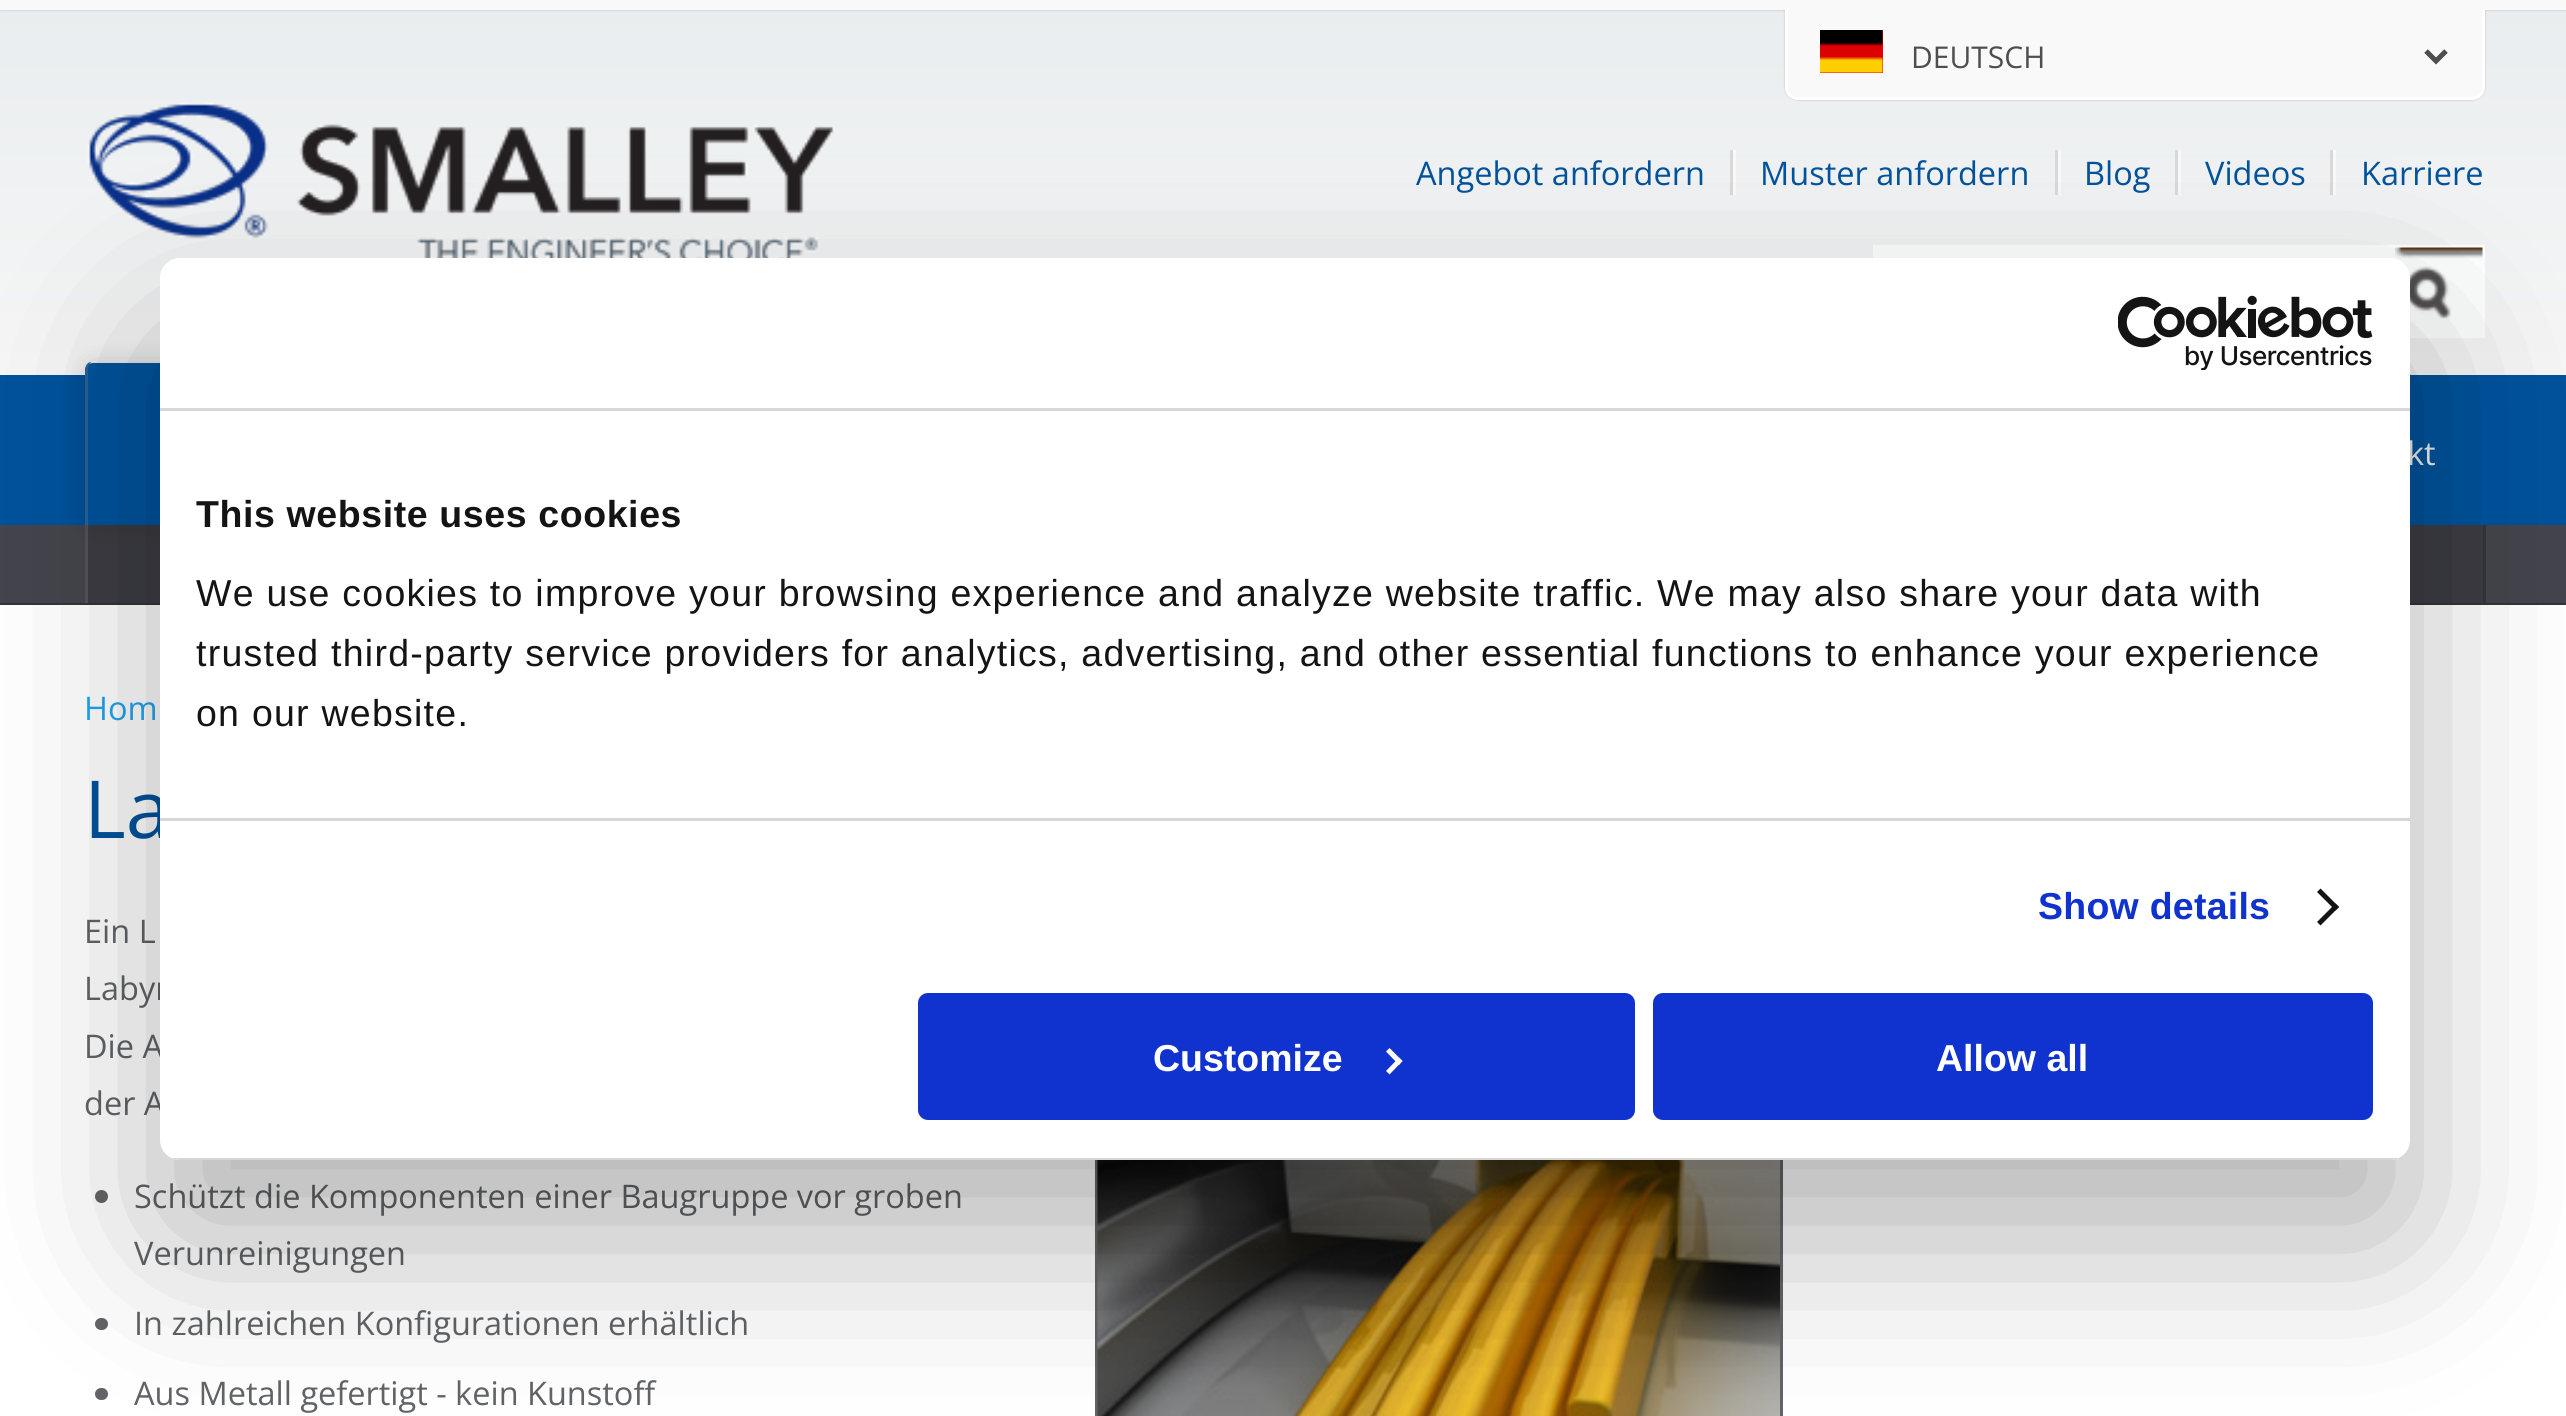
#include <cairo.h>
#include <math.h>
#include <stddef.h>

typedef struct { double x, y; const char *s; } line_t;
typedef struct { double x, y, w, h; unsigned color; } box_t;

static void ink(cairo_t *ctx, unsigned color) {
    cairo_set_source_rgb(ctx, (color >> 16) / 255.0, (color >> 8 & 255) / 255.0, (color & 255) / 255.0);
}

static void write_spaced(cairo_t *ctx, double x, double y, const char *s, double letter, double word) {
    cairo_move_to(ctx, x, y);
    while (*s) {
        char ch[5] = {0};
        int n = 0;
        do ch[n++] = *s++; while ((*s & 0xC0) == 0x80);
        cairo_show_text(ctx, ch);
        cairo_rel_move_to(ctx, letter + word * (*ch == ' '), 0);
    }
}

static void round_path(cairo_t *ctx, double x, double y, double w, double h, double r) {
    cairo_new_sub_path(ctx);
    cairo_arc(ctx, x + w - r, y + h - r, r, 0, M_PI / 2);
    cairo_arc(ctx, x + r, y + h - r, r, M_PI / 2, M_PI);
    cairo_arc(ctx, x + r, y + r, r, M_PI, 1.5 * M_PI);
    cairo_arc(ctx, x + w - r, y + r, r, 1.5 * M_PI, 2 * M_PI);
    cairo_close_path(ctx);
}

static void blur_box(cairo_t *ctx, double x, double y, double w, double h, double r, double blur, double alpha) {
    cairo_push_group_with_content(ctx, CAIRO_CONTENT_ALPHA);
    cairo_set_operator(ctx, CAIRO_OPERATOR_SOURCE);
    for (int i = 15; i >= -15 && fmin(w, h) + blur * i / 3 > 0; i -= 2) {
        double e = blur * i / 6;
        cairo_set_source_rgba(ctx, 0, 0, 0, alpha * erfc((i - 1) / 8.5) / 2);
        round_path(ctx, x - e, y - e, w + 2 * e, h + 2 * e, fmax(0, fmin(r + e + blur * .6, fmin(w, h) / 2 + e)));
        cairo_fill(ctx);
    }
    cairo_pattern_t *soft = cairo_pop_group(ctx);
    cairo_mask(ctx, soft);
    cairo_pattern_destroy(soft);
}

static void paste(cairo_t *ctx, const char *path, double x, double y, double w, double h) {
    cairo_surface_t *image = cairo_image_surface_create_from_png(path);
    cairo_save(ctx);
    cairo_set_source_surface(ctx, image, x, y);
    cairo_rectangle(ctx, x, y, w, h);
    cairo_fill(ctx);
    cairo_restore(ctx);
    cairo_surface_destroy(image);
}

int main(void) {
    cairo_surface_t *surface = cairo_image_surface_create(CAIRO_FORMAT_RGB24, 2566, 1416);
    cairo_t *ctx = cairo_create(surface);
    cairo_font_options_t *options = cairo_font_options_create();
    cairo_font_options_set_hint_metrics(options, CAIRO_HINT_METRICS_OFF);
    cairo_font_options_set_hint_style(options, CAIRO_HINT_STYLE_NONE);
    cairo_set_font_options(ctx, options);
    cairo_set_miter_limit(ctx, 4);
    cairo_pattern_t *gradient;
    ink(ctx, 0x44444C);
    cairo_paint(ctx);
    gradient = cairo_pattern_create_linear(1284, 0, 1284, 375);
    cairo_pattern_add_color_stop_rgba(gradient, 0, 0.914, 0.929, 0.937, 1);
    cairo_pattern_add_color_stop_rgba(gradient, 1, 0.965, 0.965, 0.965, 1);
    cairo_set_source(ctx, gradient);
    cairo_pattern_destroy(gradient);
    cairo_rectangle(ctx, 0, 10, 2566, 365);
    cairo_fill(ctx);
    ink(ctx, 0x000000);
    blur_box(ctx, 0, 0, 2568, 10, 0, 1, 0.2);
    blur_box(ctx, 1785, 0, 700, 100, 13, 1, 0.2);
    ink(ctx, 0xF9F9F9);
    cairo_new_path(ctx);
    cairo_move_to(ctx, 1786.5, 1.5);
    cairo_line_to(ctx, 2483.5, 1.5);
    cairo_line_to(ctx, 2483.5, 87);
    cairo_curve_to(ctx, 2483.5, 93.5, 2478.5, 98.5, 2472, 98.5);
    cairo_line_to(ctx, 1798, 98.5);
    cairo_curve_to(ctx, 1791.5, 98.5, 1786.5, 93.5, 1786.5, 87);
    cairo_close_path(ctx);
    cairo_fill_preserve(ctx);
    ink(ctx, 0xFFFFFF);
    cairo_set_line_width(ctx, 3);
    cairo_stroke(ctx);
    ink(ctx, 0xF9F9F9);
    cairo_rectangle(ctx, 0, 0, 2566, 10);
    cairo_fill(ctx);
    ink(ctx, 0xFF0000);
    cairo_rectangle(ctx, 1820, 30, 63, 43);
    cairo_fill(ctx);
    paste(ctx, "media/1.png", 1820, 30, 63, 43);
    cairo_new_path(ctx);
    cairo_move_to(ctx, 2426, 51);
    cairo_line_to(ctx, 2436, 61);
    cairo_line_to(ctx, 2446, 51);
    ink(ctx, 0x4F4D4D);
    cairo_set_line_width(ctx, 5);
    cairo_stroke(ctx);
    cairo_select_font_face(ctx, "Open Sans", CAIRO_FONT_SLANT_NORMAL, CAIRO_FONT_WEIGHT_NORMAL);
    cairo_set_font_size(ctx, 30);
    cairo_move_to(ctx, 1911, 68);
    cairo_show_text(ctx, "DEUTSCH");
    paste(ctx, "media/2.png", 87, 102, 748, 156);
    ink(ctx, 0xD9D9D9);
    cairo_rectangle(ctx, 1730, 150, 3, 45);
    cairo_fill(ctx);
    cairo_set_font_size(ctx, 32.5);
    ink(ctx, 0x00529C);
    cairo_move_to(ctx, 1416, 185);
    cairo_show_text(ctx, "Angebot anfordern");
    ink(ctx, 0xD9D9D9);
    cairo_rectangle(ctx, 2055, 150, 3, 45);
    cairo_fill(ctx);
    ink(ctx, 0xF9F9F9);
    cairo_rectangle(ctx, 1733, 150, 3, 45);
    cairo_fill(ctx);
    ink(ctx, 0x00529C);
    cairo_move_to(ctx, 1760, 185);
    cairo_show_text(ctx, "Muster anfordern");
    ink(ctx, 0xD9D9D9);
    cairo_rectangle(ctx, 2175, 150, 3, 45);
    cairo_fill(ctx);
    ink(ctx, 0xF9F9F9);
    cairo_rectangle(ctx, 2058, 150, 3, 45);
    cairo_fill(ctx);
    ink(ctx, 0x00529C);
    cairo_move_to(ctx, 2084, 185);
    cairo_show_text(ctx, "Blog");
    ink(ctx, 0xD9D9D9);
    cairo_rectangle(ctx, 2330, 150, 3, 45);
    cairo_fill(ctx);
    ink(ctx, 0xF9F9F9);
    cairo_rectangle(ctx, 2178, 150, 3, 45);
    cairo_fill(ctx);
    ink(ctx, 0x00529C);
    cairo_move_to(ctx, 2205, 185);
    cairo_show_text(ctx, "Videos");
    ink(ctx, 0xF9F9F9);
    cairo_rectangle(ctx, 2333, 150, 3, 45);
    cairo_fill(ctx);
    ink(ctx, 0x00529C);
    cairo_move_to(ctx, 2361, 185);
    cairo_show_text(ctx, "Karriere");
    ink(ctx, 0xFDFFFF);
    cairo_rectangle(ctx, 1874.5, 246.5, 609, 90);
    cairo_fill_preserve(ctx);
    ink(ctx, 0xFFFFFF);
    cairo_set_line_width(ctx, 3);
    cairo_stroke(ctx);
    paste(ctx, "media/3.png", 2395, 247, 88, 72);
    {
        static const box_t items[] = {
            {0, 375, 2566, 150, 0x00529C},
            {88, 525, 2395, 78, 0x3C3C43},
            {85, 525, 3, 78, 0x52525A},
        };
        for (size_t i = 0; i < sizeof items / sizeof *items; i++) {
            ink(ctx, items[i].color);
            cairo_rectangle(ctx, items[i].x, items[i].y, items[i].w, items[i].h);
            cairo_fill(ctx);
        }
    }
    ink(ctx, 0x000000);
    blur_box(ctx, 85, 363, 1115, 162, 8, 12.5, 0.15);
    ink(ctx, 0x00529C);
    cairo_new_path(ctx);
    cairo_move_to(ctx, 93, 363);
    cairo_line_to(ctx, 1192, 363);
    cairo_curve_to(ctx, 1196.5, 363, 1200, 366.5, 1200, 371);
    cairo_line_to(ctx, 1200, 525);
    cairo_line_to(ctx, 85, 525);
    cairo_line_to(ctx, 85, 371);
    cairo_curve_to(ctx, 85, 366.5, 88.5, 363, 93, 363);
    cairo_close_path(ctx);
    cairo_fill(ctx);
    ink(ctx, 0x285F93);
    cairo_new_path(ctx);
    cairo_move_to(ctx, 85, 525);
    cairo_line_to(ctx, 88, 525);
    cairo_line_to(ctx, 88, 370);
    cairo_curve_to(ctx, 88, 367, 89, 364, 91, 362);
    cairo_curve_to(ctx, 87, 362, 85, 367, 85, 370);
    cairo_close_path(ctx);
    cairo_fill(ctx);
    ink(ctx, 0xEDEDEE);
    cairo_move_to(ctx, 2407, 465);
    cairo_show_text(ctx, "kt");
    {
        static const box_t items[] = {
            {0, 603, 2566, 2, 0x333439},
            {2483, 525, 3, 78, 0x33333B},
            {0, 605, 2566, 811, 0xFFFFFF},
        };
        for (size_t i = 0; i < sizeof items / sizeof *items; i++) {
            ink(ctx, items[i].color);
            cairo_rectangle(ctx, items[i].x, items[i].y, items[i].w, items[i].h);
            cairo_fill(ctx);
        }
    }
    ink(ctx, 0x1FA4F0);
    cairo_move_to(ctx, 84, 720);
    cairo_show_text(ctx, "Hom");
    cairo_set_font_size(ctx, 80);
    ink(ctx, 0x00529C);
    cairo_move_to(ctx, 84, 838);
    cairo_show_text(ctx, "La");
    cairo_set_font_size(ctx, 32.5);
    ink(ctx, 0x616366);
    cairo_move_to(ctx, 84, 943);
    cairo_show_text(ctx, "Ein L");
    cairo_rectangle(ctx, 1096.5, 904.5, 685, 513);
    cairo_stroke(ctx);
    paste(ctx, "media/4.png", 1097, 1160, 683, 256);
    {
        static const line_t items[] = {
            {84, 1000, "Labyr"},
            {84, 1058, "Die A"},
            {84, 1115, "der A"},
        };
        for (size_t i = 0; i < sizeof items / sizeof *items; i++) {
            cairo_move_to(ctx, items[i].x, items[i].y);
            cairo_show_text(ctx, items[i].s);
        }
    }
    cairo_new_path(ctx);
    cairo_arc(ctx, 101.5, 1196.5, 6.5, 0, 2 * M_PI);
    cairo_fill(ctx);
    cairo_move_to(ctx, 134, 1208);
    cairo_show_text(ctx, "Schützt die Komponenten einer Baugruppe vor groben");
    cairo_move_to(ctx, 134, 1265);
    cairo_show_text(ctx, "Verunreinigungen");
    round_path(ctx, 95, 1318, 13, 12, 6);
    cairo_fill(ctx);
    cairo_move_to(ctx, 134, 1335);
    cairo_show_text(ctx, "In zahlreichen Konfigurationen erhältlich");
    round_path(ctx, 95, 1388, 13, 12, 6);
    cairo_fill(ctx);
    cairo_move_to(ctx, 134, 1405);
    cairo_show_text(ctx, "Aus Metall gefertigt - kein Kunstoff");
    ink(ctx, 0x000000);
    blur_box(ctx, 160, 338, 2250, 902, 20, 85, 0.3);
    ink(ctx, 0xFFFFFF);
    round_path(ctx, 160, 258, 2250, 902, 20);
    cairo_fill(ctx);
    ink(ctx, 0xD6D6D6);
    cairo_rectangle(ctx, 160, 408, 2250, 3);
    cairo_fill(ctx);
    paste(ctx, "media/5.png", 2118, 295, 255, 75);
    cairo_rectangle(ctx, 160, 818, 2250, 3);
    cairo_fill(ctx);
    cairo_select_font_face(ctx, "Liberation Sans", CAIRO_FONT_SLANT_NORMAL, CAIRO_FONT_WEIGHT_BOLD);
    cairo_set_font_size(ctx, 37.5);
    ink(ctx, 0x141414);
    write_spaced(ctx, 196, 527, "This website uses cookies", 0.6, 0);
    cairo_select_font_face(ctx, "Liberation Sans", CAIRO_FONT_SLANT_NORMAL, CAIRO_FONT_WEIGHT_NORMAL);
    {
        static const line_t items[] = {
            {196, 606, "We use cookies to improve your browsing experience and analyze website traffic. We may also share your data with"},
            {196, 666, "trusted third-party service providers for analytics, advertising, and other essential functions to enhance your experience"},
            {196, 726, "on our website."},
        };
        for (size_t i = 0; i < sizeof items / sizeof *items; i++) {
            write_spaced(ctx, items[i].x, items[i].y, items[i].s, 1.25, 0);
        }
    }
    cairo_select_font_face(ctx, "Liberation Sans", CAIRO_FONT_SLANT_NORMAL, CAIRO_FONT_WEIGHT_BOLD);
    ink(ctx, 0x1032CF);
    write_spaced(ctx, 2038, 919, "Show details", 0.25, 0);
    ink(ctx, 0x141414);
    cairo_new_path(ctx);
    cairo_move_to(ctx, 2320.5, 888.5);
    cairo_line_to(ctx, 2339, 907);
    cairo_line_to(ctx, 2335.5, 910.5);
    cairo_line_to(ctx, 2317, 892);
    cairo_close_path(ctx);
    cairo_fill(ctx);
    cairo_new_path(ctx);
    cairo_move_to(ctx, 2335.5, 903.5);
    cairo_line_to(ctx, 2339, 907);
    cairo_line_to(ctx, 2320.5, 925.5);
    cairo_line_to(ctx, 2317, 922);
    cairo_close_path(ctx);
    cairo_fill(ctx);
    cairo_save(ctx);
    round_path(ctx, 160, 258, 2250, 902, 20);
    cairo_clip(ctx);
    ink(ctx, 0xD6D6D6);
    cairo_rectangle(ctx, 171, 1158, 2228, 2);
    cairo_fill(ctx);
    cairo_restore(ctx);
    ink(ctx, 0x1032CF);
    round_path(ctx, 920.5, 995.5, 712, 122, 7.5);
    cairo_fill_preserve(ctx);
    cairo_set_line_width(ctx, 5);
    cairo_stroke(ctx);
    ink(ctx, 0xFFFFFF);
    cairo_move_to(ctx, 1153, 1071);
    cairo_show_text(ctx, "Customize");
    cairo_new_path(ctx);
    cairo_move_to(ctx, 1389.5, 1048);
    cairo_line_to(ctx, 1402.5, 1061);
    cairo_line_to(ctx, 1399, 1065);
    cairo_line_to(ctx, 1386, 1051.5);
    cairo_close_path(ctx);
    cairo_fill(ctx);
    cairo_new_path(ctx);
    cairo_move_to(ctx, 1399, 1057.5);
    cairo_line_to(ctx, 1402.5, 1061);
    cairo_line_to(ctx, 1389.5, 1074.5);
    cairo_line_to(ctx, 1386, 1071);
    cairo_close_path(ctx);
    cairo_fill(ctx);
    ink(ctx, 0x1032CF);
    round_path(ctx, 1655.5, 995.5, 715, 122, 7.5);
    cairo_fill_preserve(ctx);
    cairo_stroke(ctx);
    ink(ctx, 0xFFFFFF);
    cairo_move_to(ctx, 1936, 1071);
    cairo_show_text(ctx, "Allow all");
    cairo_surface_write_to_png(surface, "image.png");
    cairo_font_options_destroy(options);
    cairo_destroy(ctx);
    cairo_surface_destroy(surface);
    return 0;
}
